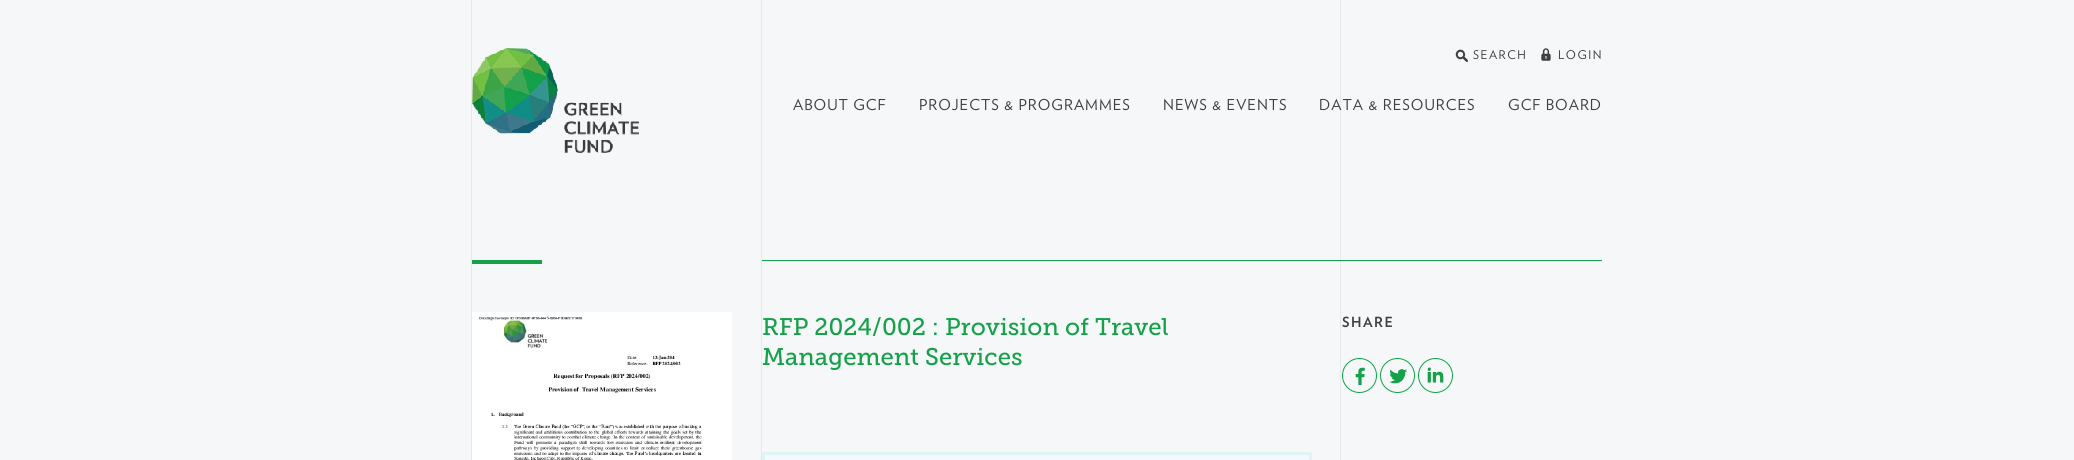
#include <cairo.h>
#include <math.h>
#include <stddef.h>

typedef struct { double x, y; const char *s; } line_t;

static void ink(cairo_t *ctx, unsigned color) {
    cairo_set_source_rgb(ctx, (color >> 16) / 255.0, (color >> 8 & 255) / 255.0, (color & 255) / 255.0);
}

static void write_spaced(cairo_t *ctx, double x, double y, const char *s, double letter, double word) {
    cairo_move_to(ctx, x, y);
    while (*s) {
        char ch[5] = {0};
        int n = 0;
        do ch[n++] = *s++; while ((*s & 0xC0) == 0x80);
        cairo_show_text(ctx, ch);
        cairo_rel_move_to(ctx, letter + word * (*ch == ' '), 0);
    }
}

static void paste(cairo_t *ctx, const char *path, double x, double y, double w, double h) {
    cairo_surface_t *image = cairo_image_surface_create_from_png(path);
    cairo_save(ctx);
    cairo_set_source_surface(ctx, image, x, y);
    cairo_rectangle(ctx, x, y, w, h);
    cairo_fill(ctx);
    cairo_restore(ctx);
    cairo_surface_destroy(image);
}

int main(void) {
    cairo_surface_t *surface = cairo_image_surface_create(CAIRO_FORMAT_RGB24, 2074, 460);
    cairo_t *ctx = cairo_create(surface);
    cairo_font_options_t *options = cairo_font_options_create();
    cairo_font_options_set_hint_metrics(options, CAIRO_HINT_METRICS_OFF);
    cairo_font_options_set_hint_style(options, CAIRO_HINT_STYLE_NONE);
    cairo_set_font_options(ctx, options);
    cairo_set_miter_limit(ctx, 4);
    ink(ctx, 0xF6F7F8);
    cairo_paint(ctx);
    paste(ctx, "media/1.png", 471, 0, 870, 460);
    paste(ctx, "media/2.png", 472, 48, 86, 86);
    paste(ctx, "media/3.png", 564, 102, 75, 51);
    paste(ctx, "media/4.png", 1455, 49, 13, 13);
    cairo_select_font_face(ctx, "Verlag", CAIRO_FONT_SLANT_NORMAL, CAIRO_FONT_WEIGHT_NORMAL);
    cairo_set_font_size(ctx, 12);
    ink(ctx, 0x404040);
    write_spaced(ctx, 1473, 59, "SEARCH", 1.5, 0);
    paste(ctx, "media/5.png", 1541, 48, 10, 13);
    write_spaced(ctx, 1558, 59, "LOGIN", 1.5, 0);
    cairo_set_font_size(ctx, 15);
    {
        static const line_t items[] = {
            {793, 110, "ABOUT GCF"},
            {919, 110, "PROJECTS & PROGRAMMES"},
            {1163, 110, "NEWS & EVENTS"},
            {1319, 110, "DATA & RESOURCES"},
            {1508, 110, "GCF BOARD"},
        };
        for (size_t i = 0; i < sizeof items / sizeof *items; i++) {
            write_spaced(ctx, items[i].x, items[i].y, items[i].s, 1, 0);
        }
    }
    ink(ctx, 0x15A14A);
    cairo_rectangle(ctx, 472, 260, 70, 4);
    cairo_fill(ctx);
    cairo_rectangle(ctx, 762, 260, 840, 1);
    cairo_fill(ctx);
    paste(ctx, "media/6.png", 472, 312, 260, 148);
    cairo_select_font_face(ctx, "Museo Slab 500", CAIRO_FONT_SLANT_NORMAL, CAIRO_FONT_WEIGHT_NORMAL);
    cairo_set_font_size(ctx, 24);
    cairo_move_to(ctx, 762, 335);
    cairo_show_text(ctx, "RFP 2024/002 : Provision of Travel");
    cairo_move_to(ctx, 762, 365);
    cairo_show_text(ctx, "Management Services");
    ink(ctx, 0xF3FAFB);
    cairo_rectangle(ctx, 763.5, 453.5, 547, 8);
    cairo_fill_preserve(ctx);
    ink(ctx, 0xE2F3F6);
    cairo_set_line_width(ctx, 3);
    cairo_stroke(ctx);
    cairo_select_font_face(ctx, "Verlag", CAIRO_FONT_SLANT_NORMAL, CAIRO_FONT_WEIGHT_BOLD);
    cairo_set_font_size(ctx, 14);
    ink(ctx, 0x404040);
    write_spaced(ctx, 1342, 327, "SHARE", 1.5, 0);
    cairo_new_path(ctx);
    cairo_arc(ctx, 1359.5, 375.5, 17, 0, 2 * M_PI);
    ink(ctx, 0x15A14A);
    cairo_set_line_width(ctx, 1);
    cairo_stroke(ctx);
    paste(ctx, "media/7.png", 1355, 367, 10, 19);
    cairo_arc(ctx, 1397.5, 375.5, 17, 0, 2 * M_PI);
    cairo_stroke(ctx);
    paste(ctx, "media/8.png", 1389, 369, 19, 15);
    cairo_arc(ctx, 1435.5, 375.5, 17, 0, 2 * M_PI);
    cairo_stroke(ctx);
    paste(ctx, "media/9.png", 1427, 367, 17, 16);
    cairo_surface_write_to_png(surface, "image.png");
    cairo_font_options_destroy(options);
    cairo_destroy(ctx);
    cairo_surface_destroy(surface);
    return 0;
}
